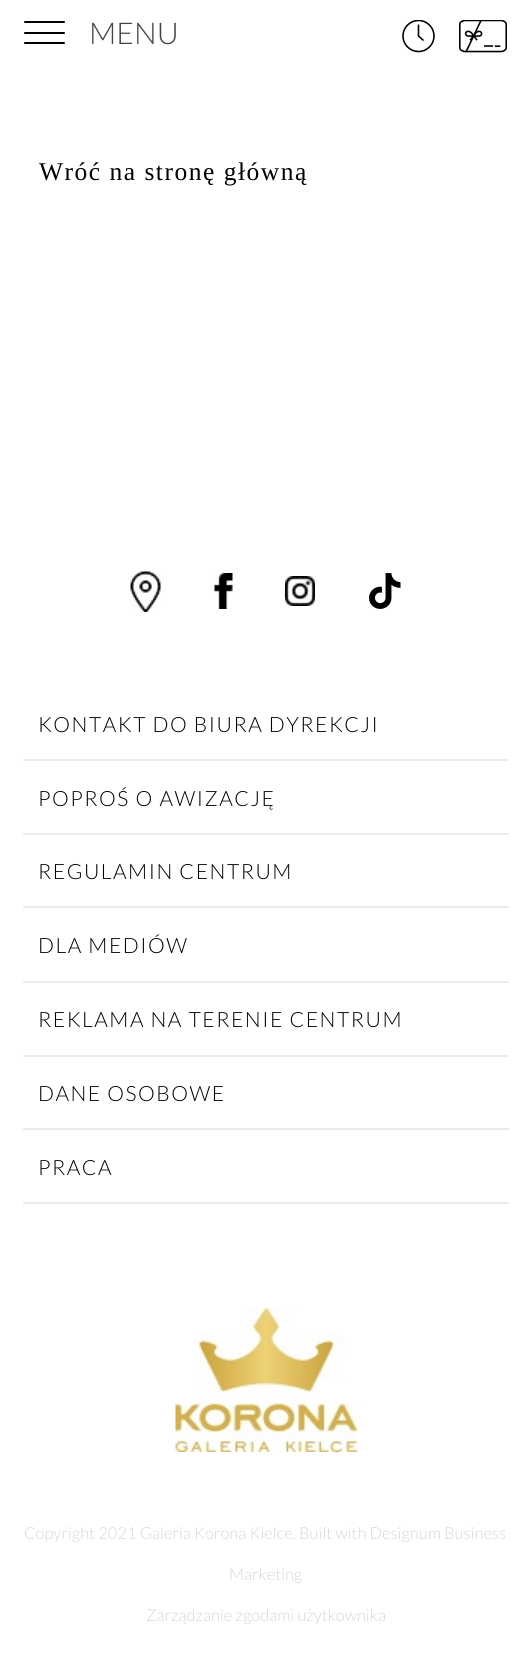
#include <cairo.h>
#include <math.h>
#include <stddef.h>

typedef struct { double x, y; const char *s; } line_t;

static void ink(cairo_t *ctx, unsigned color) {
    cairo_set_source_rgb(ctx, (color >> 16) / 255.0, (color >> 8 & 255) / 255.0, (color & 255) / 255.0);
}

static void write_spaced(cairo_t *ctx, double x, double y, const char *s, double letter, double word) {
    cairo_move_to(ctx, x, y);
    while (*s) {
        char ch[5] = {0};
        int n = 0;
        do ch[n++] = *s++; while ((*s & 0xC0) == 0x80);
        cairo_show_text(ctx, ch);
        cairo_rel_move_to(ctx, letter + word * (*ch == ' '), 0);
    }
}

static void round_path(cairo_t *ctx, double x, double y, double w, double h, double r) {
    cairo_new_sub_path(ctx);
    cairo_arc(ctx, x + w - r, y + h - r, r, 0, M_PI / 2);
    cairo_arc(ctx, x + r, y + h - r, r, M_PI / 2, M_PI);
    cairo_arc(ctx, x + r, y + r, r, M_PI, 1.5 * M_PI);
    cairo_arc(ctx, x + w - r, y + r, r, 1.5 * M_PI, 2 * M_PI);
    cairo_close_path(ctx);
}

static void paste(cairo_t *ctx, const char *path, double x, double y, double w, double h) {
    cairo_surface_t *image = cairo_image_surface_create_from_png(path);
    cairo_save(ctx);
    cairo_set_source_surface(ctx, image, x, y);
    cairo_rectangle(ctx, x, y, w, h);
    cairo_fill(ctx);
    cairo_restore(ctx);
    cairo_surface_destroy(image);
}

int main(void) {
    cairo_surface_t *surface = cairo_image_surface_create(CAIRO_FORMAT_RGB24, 530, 1664);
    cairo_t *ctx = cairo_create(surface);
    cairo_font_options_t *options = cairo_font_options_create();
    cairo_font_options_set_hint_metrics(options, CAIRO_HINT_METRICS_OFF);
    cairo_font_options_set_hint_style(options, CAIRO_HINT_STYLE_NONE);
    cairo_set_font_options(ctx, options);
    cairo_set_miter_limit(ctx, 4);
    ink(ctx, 0xFFFFFF);
    cairo_paint(ctx);
    ink(ctx, 0x000000);
    round_path(ctx, 24, 32, 41, 2, 1);
    cairo_fill(ctx);
    round_path(ctx, 24, 21, 41, 2, 1);
    cairo_fill(ctx);
    round_path(ctx, 24, 42, 41, 2, 1);
    cairo_fill(ctx);
    cairo_select_font_face(ctx, "Lato Light", CAIRO_FONT_SLANT_NORMAL, CAIRO_FONT_WEIGHT_NORMAL);
    cairo_set_font_size(ctx, 30);
    ink(ctx, 0x444444);
    cairo_move_to(ctx, 89, 44);
    cairo_show_text(ctx, "MENU");
    cairo_save(ctx);
    cairo_rectangle(ctx, 402, 20, 33, 33);
    cairo_clip(ctx);
    cairo_arc(ctx, 418.5, 36, 15.5, 0, 2 * M_PI);
    ink(ctx, 0x000000);
    cairo_set_line_width(ctx, 1.6);
    cairo_stroke(ctx);
    cairo_restore(ctx);
    cairo_new_path(ctx);
    cairo_move_to(ctx, 418.5, 24.5);
    cairo_line_to(ctx, 418.5, 36);
    cairo_line_to(ctx, 423.5, 40.5);
    ink(ctx, 0x000000);
    cairo_set_line_width(ctx, 1.6);
    cairo_stroke(ctx);
    paste(ctx, "media/1.png", 459, 20, 48, 33);
    cairo_select_font_face(ctx, "Tinos", CAIRO_FONT_SLANT_NORMAL, CAIRO_FONT_WEIGHT_NORMAL);
    cairo_set_font_size(ctx, 25.5);
    write_spaced(ctx, 39, 180, "Wróć na stronę główną", 1.5, 0);
    paste(ctx, "media/2.png", 130, 571, 31, 41);
    paste(ctx, "media/3.png", 214, 573, 19, 36);
    paste(ctx, "media/4.png", 285, 576, 30, 30);
    paste(ctx, "media/5.png", 369, 573, 32, 36);
    ink(ctx, 0xEBEBEB);
    cairo_rectangle(ctx, 23, 759, 486, 2);
    cairo_fill(ctx);
    cairo_select_font_face(ctx, "Lato Light", CAIRO_FONT_SLANT_NORMAL, CAIRO_FONT_WEIGHT_NORMAL);
    cairo_set_font_size(ctx, 21);
    ink(ctx, 0x000000);
    write_spaced(ctx, 38, 732, "KONTAKT DO BIURA DYREKCJI", 1.5, 0);
    ink(ctx, 0xEBEBEB);
    cairo_rectangle(ctx, 23, 833, 486, 2);
    cairo_fill(ctx);
    ink(ctx, 0x000000);
    write_spaced(ctx, 38, 806, "POPROŚ O AWIZACJĘ", 1.5, 0);
    ink(ctx, 0xEBEBEB);
    cairo_rectangle(ctx, 23, 906, 486, 2);
    cairo_fill(ctx);
    ink(ctx, 0x000000);
    write_spaced(ctx, 38, 879, "REGULAMIN CENTRUM", 1.5, 0);
    ink(ctx, 0xEBEBEB);
    cairo_rectangle(ctx, 23, 981, 486, 2);
    cairo_fill(ctx);
    ink(ctx, 0x000000);
    write_spaced(ctx, 38, 953, "DLA MEDIÓW", 1.5, 0);
    ink(ctx, 0xEBEBEB);
    cairo_rectangle(ctx, 23, 1055, 486, 2);
    cairo_fill(ctx);
    ink(ctx, 0x000000);
    write_spaced(ctx, 38, 1027, "REKLAMA NA TERENIE CENTRUM", 1.5, 0);
    ink(ctx, 0xEBEBEB);
    cairo_rectangle(ctx, 23, 1128, 486, 2);
    cairo_fill(ctx);
    ink(ctx, 0x000000);
    write_spaced(ctx, 38, 1101, "DANE OSOBOWE", 1.5, 0);
    ink(ctx, 0xEBEBEB);
    cairo_rectangle(ctx, 23, 1202, 486, 2);
    cairo_fill(ctx);
    ink(ctx, 0x000000);
    write_spaced(ctx, 38, 1175, "PRACA", 1.5, 0);
    paste(ctx, "media/6.png", 175, 1308, 182, 144);
    cairo_set_font_size(ctx, 16.5);
    ink(ctx, 0xD6D6D6);
    {
        static const line_t items[] = {
            {24, 1539, "Copyright 2021 Galeria Korona Kielce. Built with Designum Business"},
            {229, 1580, "Marketing"},
            {146, 1621, "Zarządzanie zgodami użytkownika"},
        };
        for (size_t i = 0; i < sizeof items / sizeof *items; i++) {
            cairo_move_to(ctx, items[i].x, items[i].y);
            cairo_show_text(ctx, items[i].s);
        }
    }
    cairo_surface_write_to_png(surface, "image.png");
    cairo_font_options_destroy(options);
    cairo_destroy(ctx);
    cairo_surface_destroy(surface);
    return 0;
}
